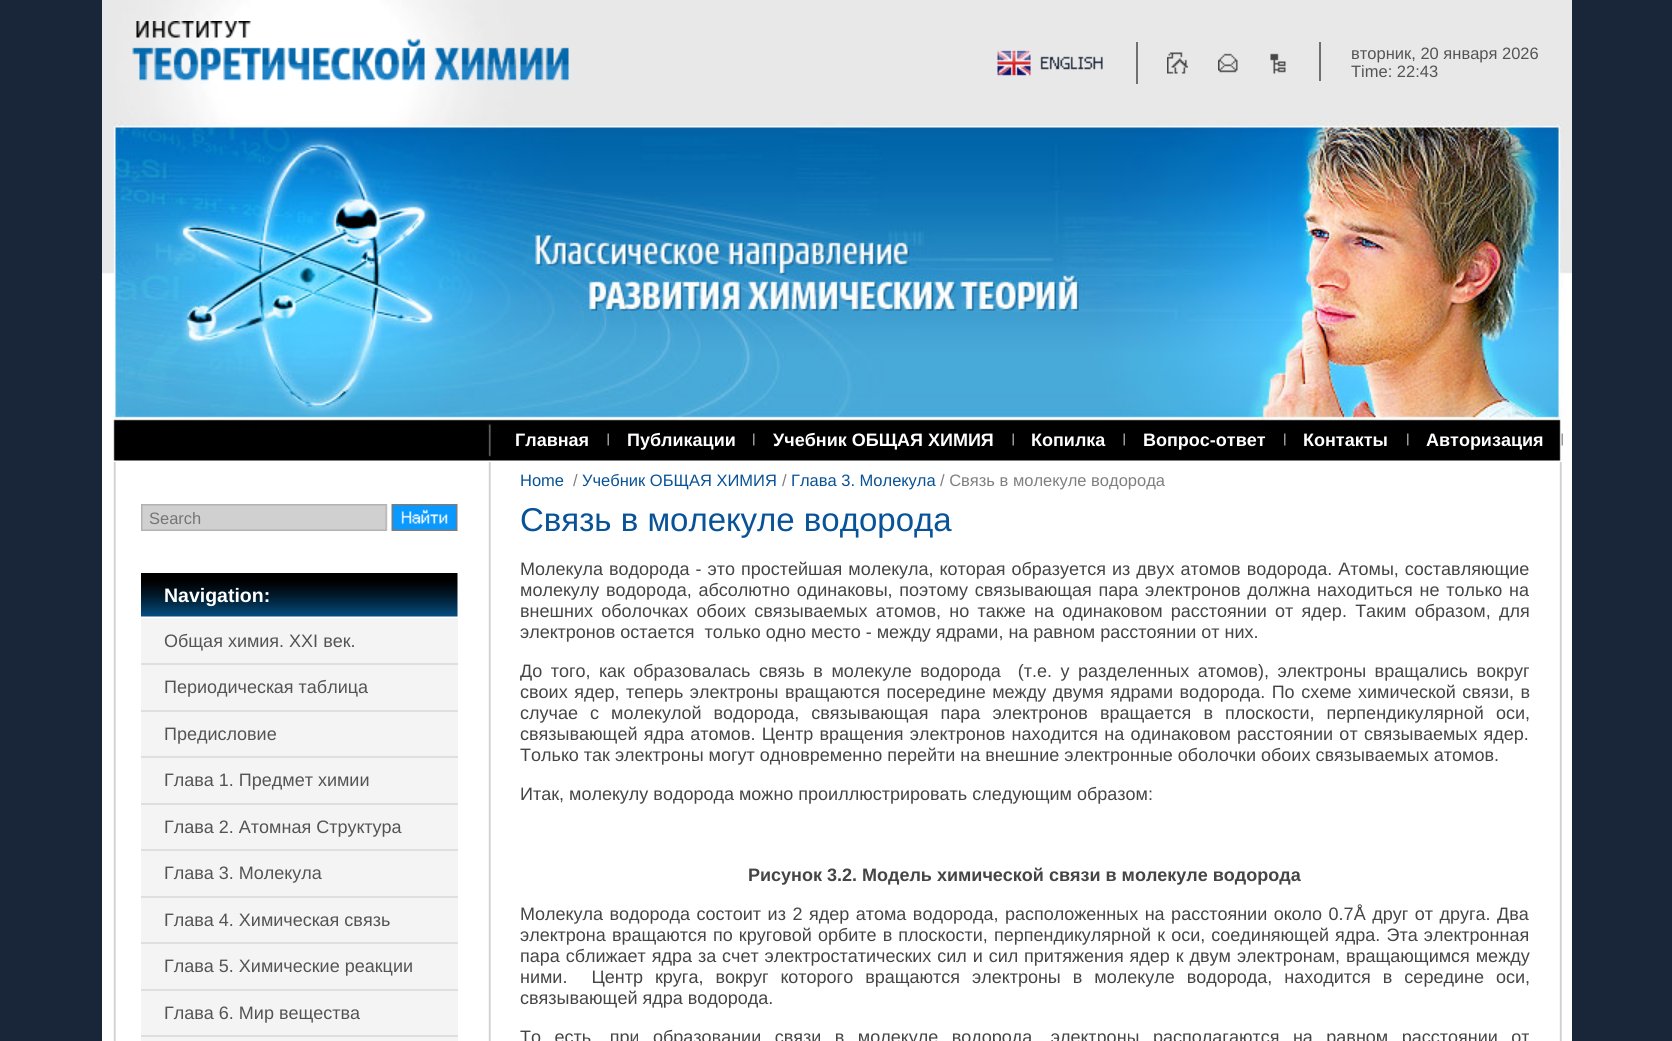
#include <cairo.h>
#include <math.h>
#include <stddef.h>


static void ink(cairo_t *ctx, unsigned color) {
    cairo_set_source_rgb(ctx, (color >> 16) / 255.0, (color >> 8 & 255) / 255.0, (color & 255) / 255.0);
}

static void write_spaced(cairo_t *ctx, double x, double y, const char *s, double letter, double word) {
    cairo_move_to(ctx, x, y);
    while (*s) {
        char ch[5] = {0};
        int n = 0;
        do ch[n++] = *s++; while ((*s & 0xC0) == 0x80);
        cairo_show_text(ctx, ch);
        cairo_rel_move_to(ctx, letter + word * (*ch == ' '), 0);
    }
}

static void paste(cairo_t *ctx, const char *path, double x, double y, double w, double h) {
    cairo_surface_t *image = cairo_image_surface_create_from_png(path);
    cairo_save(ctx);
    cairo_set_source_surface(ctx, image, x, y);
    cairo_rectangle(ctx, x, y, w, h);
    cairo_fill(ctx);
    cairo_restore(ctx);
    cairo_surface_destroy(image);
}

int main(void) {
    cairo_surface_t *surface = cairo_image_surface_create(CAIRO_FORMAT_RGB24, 1672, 1041);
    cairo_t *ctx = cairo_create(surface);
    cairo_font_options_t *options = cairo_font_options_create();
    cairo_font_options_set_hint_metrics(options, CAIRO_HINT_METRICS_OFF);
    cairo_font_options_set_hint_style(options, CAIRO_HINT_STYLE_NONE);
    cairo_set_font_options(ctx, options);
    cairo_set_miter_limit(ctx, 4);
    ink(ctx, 0x192538);
    cairo_paint(ctx);
    ink(ctx, 0xFFFFFF);
    cairo_rectangle(ctx, 102, 462, 1470, 579);
    cairo_fill(ctx);
    paste(ctx, "media/1.png", 113, 462, 1449, 579);
    paste(ctx, "media/2.png", 102, 0, 1470, 462);
    paste(ctx, "media/3.png", 132, 21, 437, 60);
    paste(ctx, "media/4.png", 997, 50, 106, 26);
    ink(ctx, 0x707070);
    cairo_rectangle(ctx, 1136, 42, 2, 42);
    cairo_fill(ctx);
    paste(ctx, "media/5.png", 1167, 52, 21, 22);
    paste(ctx, "media/6.png", 1218, 53, 20, 20);
    paste(ctx, "media/7.png", 1270, 53, 16, 21);
    cairo_rectangle(ctx, 1319, 42, 2, 39);
    cairo_fill(ctx);
    cairo_select_font_face(ctx, "Liberation Sans", CAIRO_FONT_SLANT_NORMAL, CAIRO_FONT_WEIGHT_NORMAL);
    cairo_set_font_size(ctx, 16.5);
    ink(ctx, 0x545454);
    cairo_move_to(ctx, 1351, 59);
    cairo_show_text(ctx, "вторник, 20 января 2026");
    cairo_move_to(ctx, 1351, 77);
    cairo_show_text(ctx, "Time: 22:43");
    paste(ctx, "media/8.png", 607, 433, 2, 13);
    cairo_select_font_face(ctx, "Liberation Sans", CAIRO_FONT_SLANT_NORMAL, CAIRO_FONT_WEIGHT_BOLD);
    cairo_set_font_size(ctx, 18);
    ink(ctx, 0xFFFFFF);
    cairo_move_to(ctx, 515, 446);
    cairo_show_text(ctx, "Главная");
    paste(ctx, "media/9.png", 753, 433, 2, 13);
    cairo_move_to(ctx, 627, 446);
    cairo_show_text(ctx, "Публикации");
    paste(ctx, "media/8.png", 1012, 433, 2, 13);
    cairo_move_to(ctx, 773, 446);
    cairo_show_text(ctx, "Учебник ОБЩАЯ ХИМИЯ");
    paste(ctx, "media/8.png", 1123, 433, 2, 13);
    cairo_move_to(ctx, 1031, 446);
    cairo_show_text(ctx, "Копилка");
    paste(ctx, "media/9.png", 1284, 433, 2, 13);
    cairo_move_to(ctx, 1143, 446);
    cairo_show_text(ctx, "Вопрос-ответ");
    paste(ctx, "media/9.png", 1407, 433, 2, 13);
    cairo_move_to(ctx, 1303, 446);
    cairo_show_text(ctx, "Контакты");
    paste(ctx, "media/10.png", 1561, 433, 2, 13);
    cairo_move_to(ctx, 1426, 446);
    cairo_show_text(ctx, "Авторизация");
    paste(ctx, "media/11.png", 141, 504, 317, 27);
    cairo_select_font_face(ctx, "Liberation Sans", CAIRO_FONT_SLANT_NORMAL, CAIRO_FONT_WEIGHT_NORMAL);
    cairo_set_font_size(ctx, 16.5);
    ink(ctx, 0x757575);
    cairo_move_to(ctx, 149, 524);
    cairo_show_text(ctx, "Search");
    paste(ctx, "media/12.png", 141, 573, 317, 44);
    cairo_select_font_face(ctx, "Liberation Sans", CAIRO_FONT_SLANT_NORMAL, CAIRO_FONT_WEIGHT_BOLD);
    cairo_set_font_size(ctx, 19.5);
    ink(ctx, 0xFFFFFF);
    cairo_move_to(ctx, 164, 602);
    cairo_show_text(ctx, "Navigation:");
    ink(ctx, 0xF5F4F4);
    cairo_rectangle(ctx, 141, 618, 317, 423);
    cairo_fill(ctx);
    ink(ctx, 0xDFDFDF);
    cairo_rectangle(ctx, 141, 663, 317, 2);
    cairo_fill(ctx);
    cairo_select_font_face(ctx, "Liberation Sans", CAIRO_FONT_SLANT_NORMAL, CAIRO_FONT_WEIGHT_NORMAL);
    cairo_set_font_size(ctx, 18);
    ink(ctx, 0x545454);
    cairo_move_to(ctx, 164, 647);
    cairo_show_text(ctx, "Общая химия. XXI век.");
    ink(ctx, 0xDFDFDF);
    cairo_rectangle(ctx, 141, 710, 317, 2);
    cairo_fill(ctx);
    ink(ctx, 0x545454);
    cairo_move_to(ctx, 164, 693);
    cairo_show_text(ctx, "Периодическая таблица");
    ink(ctx, 0xDFDFDF);
    cairo_rectangle(ctx, 141, 756, 317, 2);
    cairo_fill(ctx);
    ink(ctx, 0x545454);
    cairo_move_to(ctx, 164, 740);
    cairo_show_text(ctx, "Предисловие");
    ink(ctx, 0xDFDFDF);
    cairo_rectangle(ctx, 141, 803, 317, 2);
    cairo_fill(ctx);
    ink(ctx, 0x545454);
    cairo_move_to(ctx, 164, 786);
    cairo_show_text(ctx, "Глава 1. Предмет химии");
    ink(ctx, 0xDFDFDF);
    cairo_rectangle(ctx, 141, 849, 317, 2);
    cairo_fill(ctx);
    ink(ctx, 0x545454);
    cairo_move_to(ctx, 164, 833);
    cairo_show_text(ctx, "Глава 2. Атомная Структура");
    ink(ctx, 0xDFDFDF);
    cairo_rectangle(ctx, 141, 896, 317, 2);
    cairo_fill(ctx);
    ink(ctx, 0x545454);
    cairo_move_to(ctx, 164, 879);
    cairo_show_text(ctx, "Глава 3. Молекула");
    ink(ctx, 0xDFDFDF);
    cairo_rectangle(ctx, 141, 942, 317, 2);
    cairo_fill(ctx);
    ink(ctx, 0x545454);
    cairo_move_to(ctx, 164, 926);
    cairo_show_text(ctx, "Глава 4. Химическая связь");
    ink(ctx, 0xDFDFDF);
    cairo_rectangle(ctx, 141, 989, 317, 2);
    cairo_fill(ctx);
    ink(ctx, 0x545454);
    cairo_move_to(ctx, 164, 972);
    cairo_show_text(ctx, "Глава 5. Химические реакции");
    ink(ctx, 0xDFDFDF);
    cairo_rectangle(ctx, 141, 1035, 317, 2);
    cairo_fill(ctx);
    ink(ctx, 0x545454);
    cairo_move_to(ctx, 164, 1019);
    cairo_show_text(ctx, "Глава 6. Мир вещества");
    cairo_set_font_size(ctx, 16.5);
    ink(ctx, 0x085297);
    cairo_move_to(ctx, 520, 486);
    cairo_show_text(ctx, "Home");
    ink(ctx, 0x7F7F7F);
    cairo_move_to(ctx, 573, 486);
    cairo_show_text(ctx, "/");
    ink(ctx, 0x085297);
    cairo_move_to(ctx, 582, 486);
    cairo_show_text(ctx, "Учебник ОБЩАЯ ХИМИЯ");
    ink(ctx, 0x7F7F7F);
    cairo_move_to(ctx, 782, 486);
    cairo_show_text(ctx, "/");
    ink(ctx, 0x085297);
    cairo_move_to(ctx, 791, 486);
    cairo_show_text(ctx, "Глава 3. Молекула");
    ink(ctx, 0x7F7F7F);
    cairo_move_to(ctx, 940, 486);
    cairo_show_text(ctx, "/ Связь в молекуле водорода");
    cairo_set_font_size(ctx, 33);
    ink(ctx, 0x085297);
    cairo_move_to(ctx, 520, 531);
    cairo_show_text(ctx, "Связь в молекуле водорода");
    cairo_set_font_size(ctx, 18);
    ink(ctx, 0x454545);
    write_spaced(ctx, 520, 575, "Молекула водорода - это простейшая молекула, которая образуется из двух атомов водорода. Атомы, составляющие", 0, 1);
    write_spaced(ctx, 520, 596, "молекулу водорода, абсолютно одинаковы, поэтому связывающая пара электронов должна находиться не только на", 0, 1.75);
    write_spaced(ctx, 520, 617, "внешних оболочках обоих связываемых атомов, но также на одинаковом расстоянии от ядер. Таким образом, для", 0, 3.25);
    cairo_move_to(ctx, 520, 638);
    cairo_show_text(ctx, "электронов остается  только одно место - между ядрами, на равном расстоянии от них.");
    write_spaced(ctx, 520, 677, "До того, как образовалась связь в молекуле водорода  (т.е. у разделенных атомов), электроны вращались вокруг", 0, 3.5);
    write_spaced(ctx, 520, 698, "своих ядер, теперь электроны вращаются посередине между двумя ядрами водорода. По схеме химической связи, в", 0, 1.5);
    write_spaced(ctx, 520, 719, "случае с молекулой водорода, связывающая пара электронов вращается в плоскости, перпендикулярной оси,", 0, 7.1);
    write_spaced(ctx, 520, 740, "связывающей ядра атомов. Центр вращения электронов находится на одинаковом расстоянии от связываемых ядер.", 0, 1.25);
    cairo_move_to(ctx, 520, 761);
    cairo_show_text(ctx, "Только так электроны могут одновременно перейти на внешние электронные оболочки обоих связываемых атомов.");
    cairo_move_to(ctx, 520, 800);
    cairo_show_text(ctx, "Итак, молекулу водорода можно проиллюстрировать следующим образом:");
    cairo_select_font_face(ctx, "Liberation Sans", CAIRO_FONT_SLANT_NORMAL, CAIRO_FONT_WEIGHT_BOLD);
    cairo_move_to(ctx, 748, 881);
    cairo_show_text(ctx, "Рисунок 3.2. Модель химической связи в молекуле водорода");
    cairo_select_font_face(ctx, "Liberation Sans", CAIRO_FONT_SLANT_NORMAL, CAIRO_FONT_WEIGHT_NORMAL);
    write_spaced(ctx, 520, 920, "Молекула водорода состоит из 2 ядер атома водорода, расположенных на расстоянии около 0.7Å друг от друга. Два", 0, 1.5);
    write_spaced(ctx, 520, 941, "электрона вращаются по круговой орбите в плоскости, перпендикулярной к оси, соединяющей ядра. Эта электронная", 0, 1.1);
    write_spaced(ctx, 520, 962, "пара сближает ядра за счет электростатических сил и сил притяжения ядер к двум электронам, вращающимся между", 0, 0.9);
    write_spaced(ctx, 520, 983, "ними.  Центр круга, вокруг которого вращаются электроны в молекуле водорода, находится в середине оси,", 0, 7);
    cairo_move_to(ctx, 520, 1004);
    cairo_show_text(ctx, "связывающей ядра водорода.");
    write_spaced(ctx, 520, 1043, "То есть, при образовании связи в молекуле водорода, электроны располагаются на равном расстоянии от", 0, 8.5);
    cairo_surface_write_to_png(surface, "image.png");
    cairo_font_options_destroy(options);
    cairo_destroy(ctx);
    cairo_surface_destroy(surface);
    return 0;
}
